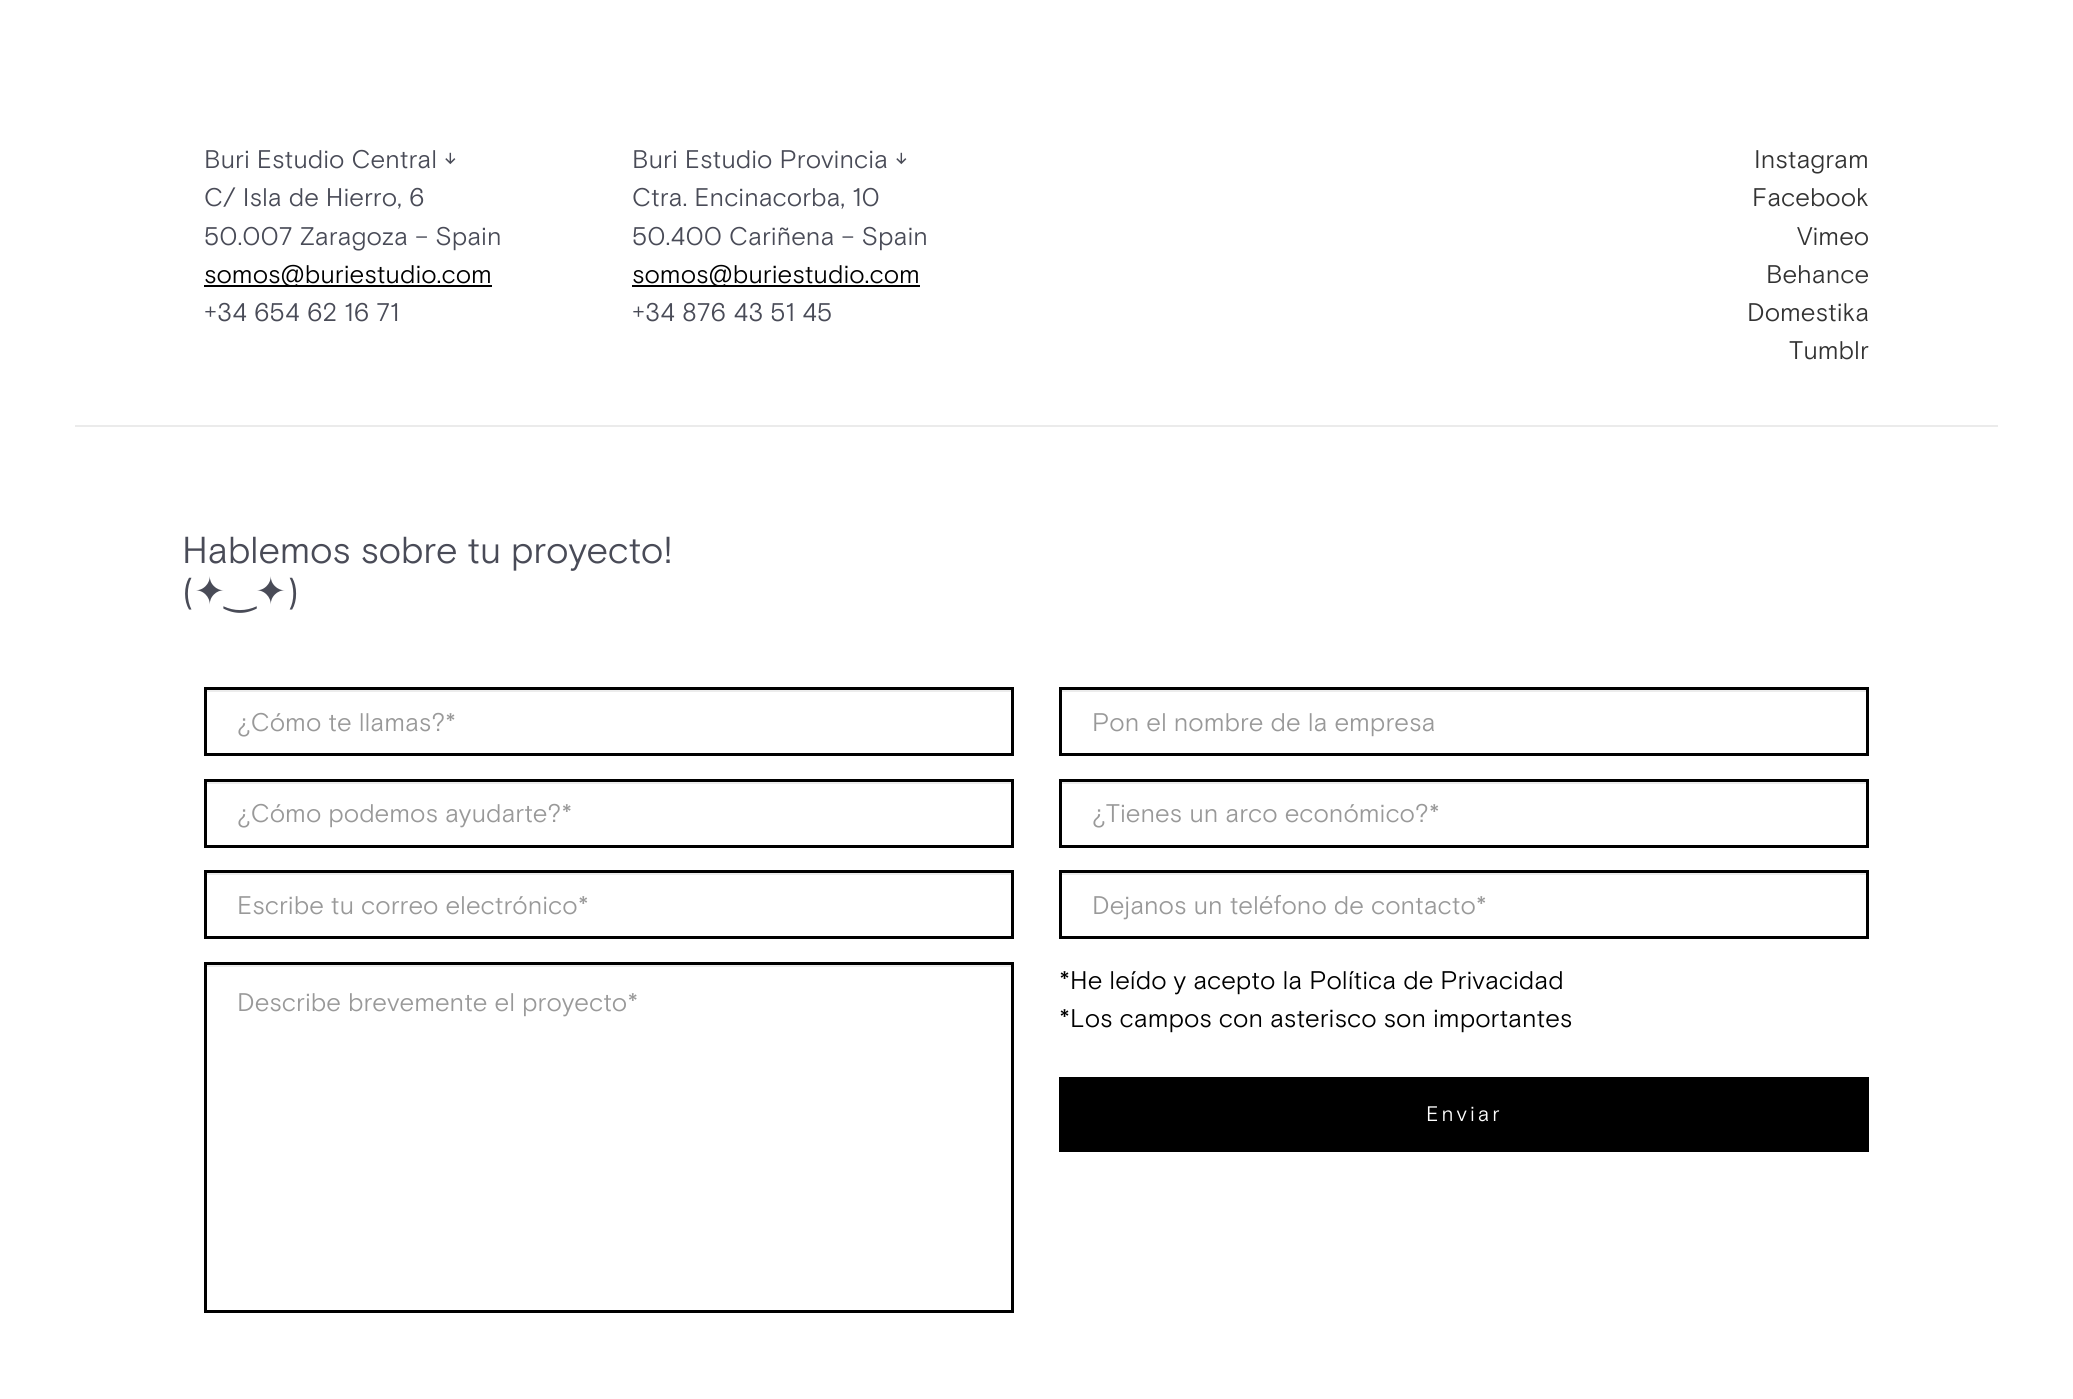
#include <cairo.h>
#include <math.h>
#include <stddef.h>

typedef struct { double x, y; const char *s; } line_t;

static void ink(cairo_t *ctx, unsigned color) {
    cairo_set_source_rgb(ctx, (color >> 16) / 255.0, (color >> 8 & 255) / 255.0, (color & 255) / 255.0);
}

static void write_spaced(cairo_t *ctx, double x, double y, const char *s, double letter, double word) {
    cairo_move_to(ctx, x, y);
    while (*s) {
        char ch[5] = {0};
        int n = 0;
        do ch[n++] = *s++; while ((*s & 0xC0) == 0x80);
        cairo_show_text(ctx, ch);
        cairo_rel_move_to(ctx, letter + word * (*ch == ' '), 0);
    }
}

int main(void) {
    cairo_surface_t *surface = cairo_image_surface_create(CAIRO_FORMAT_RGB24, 2073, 1399);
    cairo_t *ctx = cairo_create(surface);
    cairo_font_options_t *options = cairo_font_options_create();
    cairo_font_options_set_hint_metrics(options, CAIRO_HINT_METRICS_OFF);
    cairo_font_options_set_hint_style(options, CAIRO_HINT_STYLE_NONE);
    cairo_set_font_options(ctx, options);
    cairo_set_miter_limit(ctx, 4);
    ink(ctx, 0xFFFFFF);
    cairo_paint(ctx);
    cairo_select_font_face(ctx, "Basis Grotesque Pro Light", CAIRO_FONT_SLANT_NORMAL, CAIRO_FONT_WEIGHT_NORMAL);
    cairo_set_font_size(ctx, 25.5);
    ink(ctx, 0x494B57);
    {
        static const line_t items[] = {
            {204, 168, "Buri Estudio Central ↓"},
            {204, 206, "C/ Isla de Hierro, 6"},
            {204, 245, "50.007 Zaragoza – Spain"},
        };
        for (size_t i = 0; i < sizeof items / sizeof *items; i++) {
            cairo_move_to(ctx, items[i].x, items[i].y);
            cairo_show_text(ctx, items[i].s);
        }
    }
    ink(ctx, 0x000000);
    cairo_rectangle(ctx, 204, 285, 288, 2);
    cairo_fill(ctx);
    cairo_move_to(ctx, 204, 283);
    cairo_show_text(ctx, "somos@buriestudio.com");
    ink(ctx, 0x494B57);
    {
        static const line_t items[] = {
            {204, 321, "+34 654 62 16 71"},
            {632, 168, "Buri Estudio Provincia ↓"},
            {632, 206, "Ctra. Encinacorba, 10"},
            {632, 245, "50.400 Cariñena – Spain"},
        };
        for (size_t i = 0; i < sizeof items / sizeof *items; i++) {
            cairo_move_to(ctx, items[i].x, items[i].y);
            cairo_show_text(ctx, items[i].s);
        }
    }
    ink(ctx, 0x000000);
    cairo_rectangle(ctx, 632, 285, 288, 2);
    cairo_fill(ctx);
    cairo_move_to(ctx, 632, 283);
    cairo_show_text(ctx, "somos@buriestudio.com");
    ink(ctx, 0x494B57);
    cairo_move_to(ctx, 632, 321);
    cairo_show_text(ctx, "+34 876 43 51 45");
    ink(ctx, 0x333333);
    {
        static const line_t items[] = {
            {1754, 168, "Instagram"},
            {1752, 206, "Facebook"},
            {1797, 245, "Vimeo"},
            {1766, 283, "Behance"},
            {1747, 321, "Domestika"},
            {1789, 359, "Tumblr"},
        };
        for (size_t i = 0; i < sizeof items / sizeof *items; i++) {
            cairo_move_to(ctx, items[i].x, items[i].y);
            cairo_show_text(ctx, items[i].s);
        }
    }
    ink(ctx, 0xEBEBEB);
    cairo_rectangle(ctx, 75, 425, 1923, 2);
    cairo_fill(ctx);
    cairo_set_font_size(ctx, 37.5);
    ink(ctx, 0x494B57);
    write_spaced(ctx, 182, 563, "Hablemos sobre tu proyecto!", -0.3, 0);
    write_spaced(ctx, 182, 604, "(", -0.3, 0);
    cairo_select_font_face(ctx, "DejaVu Sans", CAIRO_FONT_SLANT_NORMAL, CAIRO_FONT_WEIGHT_NORMAL);
    write_spaced(ctx, 194, 604, "✦‿✦", -0.3, 0);
    cairo_select_font_face(ctx, "Basis Grotesque Pro Light", CAIRO_FONT_SLANT_NORMAL, CAIRO_FONT_WEIGHT_NORMAL);
    write_spaced(ctx, 286, 604, ")", -0.3, 0);
    ink(ctx, 0xECECEC);
    cairo_rectangle(ctx, 207, 690, 804, 2);
    cairo_fill(ctx);
    cairo_rectangle(ctx, 205.5, 688.5, 807, 66);
    ink(ctx, 0x000000);
    cairo_set_line_width(ctx, 3);
    cairo_stroke(ctx);
    cairo_set_font_size(ctx, 25.5);
    ink(ctx, 0x999999);
    cairo_move_to(ctx, 237, 731);
    cairo_show_text(ctx, "¿Cómo te llamas?*");
    ink(ctx, 0xECECEC);
    cairo_rectangle(ctx, 1062, 690, 804, 2);
    cairo_fill(ctx);
    cairo_rectangle(ctx, 1060.5, 688.5, 807, 66);
    ink(ctx, 0x000000);
    cairo_stroke(ctx);
    ink(ctx, 0x999999);
    cairo_move_to(ctx, 1092, 731);
    cairo_show_text(ctx, "Pon el nombre de la empresa");
    ink(ctx, 0xECECEC);
    cairo_rectangle(ctx, 207, 782, 804, 2);
    cairo_fill(ctx);
    cairo_rectangle(ctx, 205.5, 780.5, 807, 66);
    ink(ctx, 0x000000);
    cairo_stroke(ctx);
    ink(ctx, 0x999999);
    cairo_move_to(ctx, 237, 822);
    cairo_show_text(ctx, "¿Cómo podemos ayudarte?*");
    ink(ctx, 0xECECEC);
    cairo_rectangle(ctx, 1062, 782, 804, 2);
    cairo_fill(ctx);
    cairo_rectangle(ctx, 1060.5, 780.5, 807, 66);
    ink(ctx, 0x000000);
    cairo_stroke(ctx);
    ink(ctx, 0x999999);
    cairo_move_to(ctx, 1092, 822);
    cairo_show_text(ctx, "¿Tienes un arco económico?*");
    ink(ctx, 0xECECEC);
    cairo_rectangle(ctx, 207, 873, 804, 2);
    cairo_fill(ctx);
    cairo_rectangle(ctx, 205.5, 871.5, 807, 66);
    ink(ctx, 0x000000);
    cairo_stroke(ctx);
    ink(ctx, 0x999999);
    cairo_move_to(ctx, 237, 914);
    cairo_show_text(ctx, "Escribe tu correo electrónico*");
    ink(ctx, 0xECECEC);
    cairo_rectangle(ctx, 1062, 873, 804, 2);
    cairo_fill(ctx);
    cairo_rectangle(ctx, 1060.5, 871.5, 807, 66);
    ink(ctx, 0x000000);
    cairo_stroke(ctx);
    ink(ctx, 0x999999);
    cairo_move_to(ctx, 1092, 914);
    cairo_show_text(ctx, "Dejanos un teléfono de contacto*");
    ink(ctx, 0xECECEC);
    cairo_rectangle(ctx, 207, 965, 804, 2);
    cairo_fill(ctx);
    cairo_rectangle(ctx, 205.5, 963.5, 807, 348);
    ink(ctx, 0x000000);
    cairo_stroke(ctx);
    ink(ctx, 0x999999);
    cairo_move_to(ctx, 237, 1011);
    cairo_show_text(ctx, "Describe brevemente el proyecto*");
    ink(ctx, 0x000000);
    cairo_move_to(ctx, 1059, 989);
    cairo_show_text(ctx, "*He leído y acepto la Política de Privacidad");
    cairo_move_to(ctx, 1059, 1027);
    cairo_show_text(ctx, "*Los campos con asterisco son importantes");
    cairo_rectangle(ctx, 1059, 1077, 810, 75);
    cairo_fill(ctx);
    cairo_set_font_size(ctx, 21);
    ink(ctx, 0xFFFFFF);
    write_spaced(ctx, 1426, 1121, "Enviar", 3, 0);
    cairo_surface_write_to_png(surface, "image.png");
    cairo_font_options_destroy(options);
    cairo_destroy(ctx);
    cairo_surface_destroy(surface);
    return 0;
}
